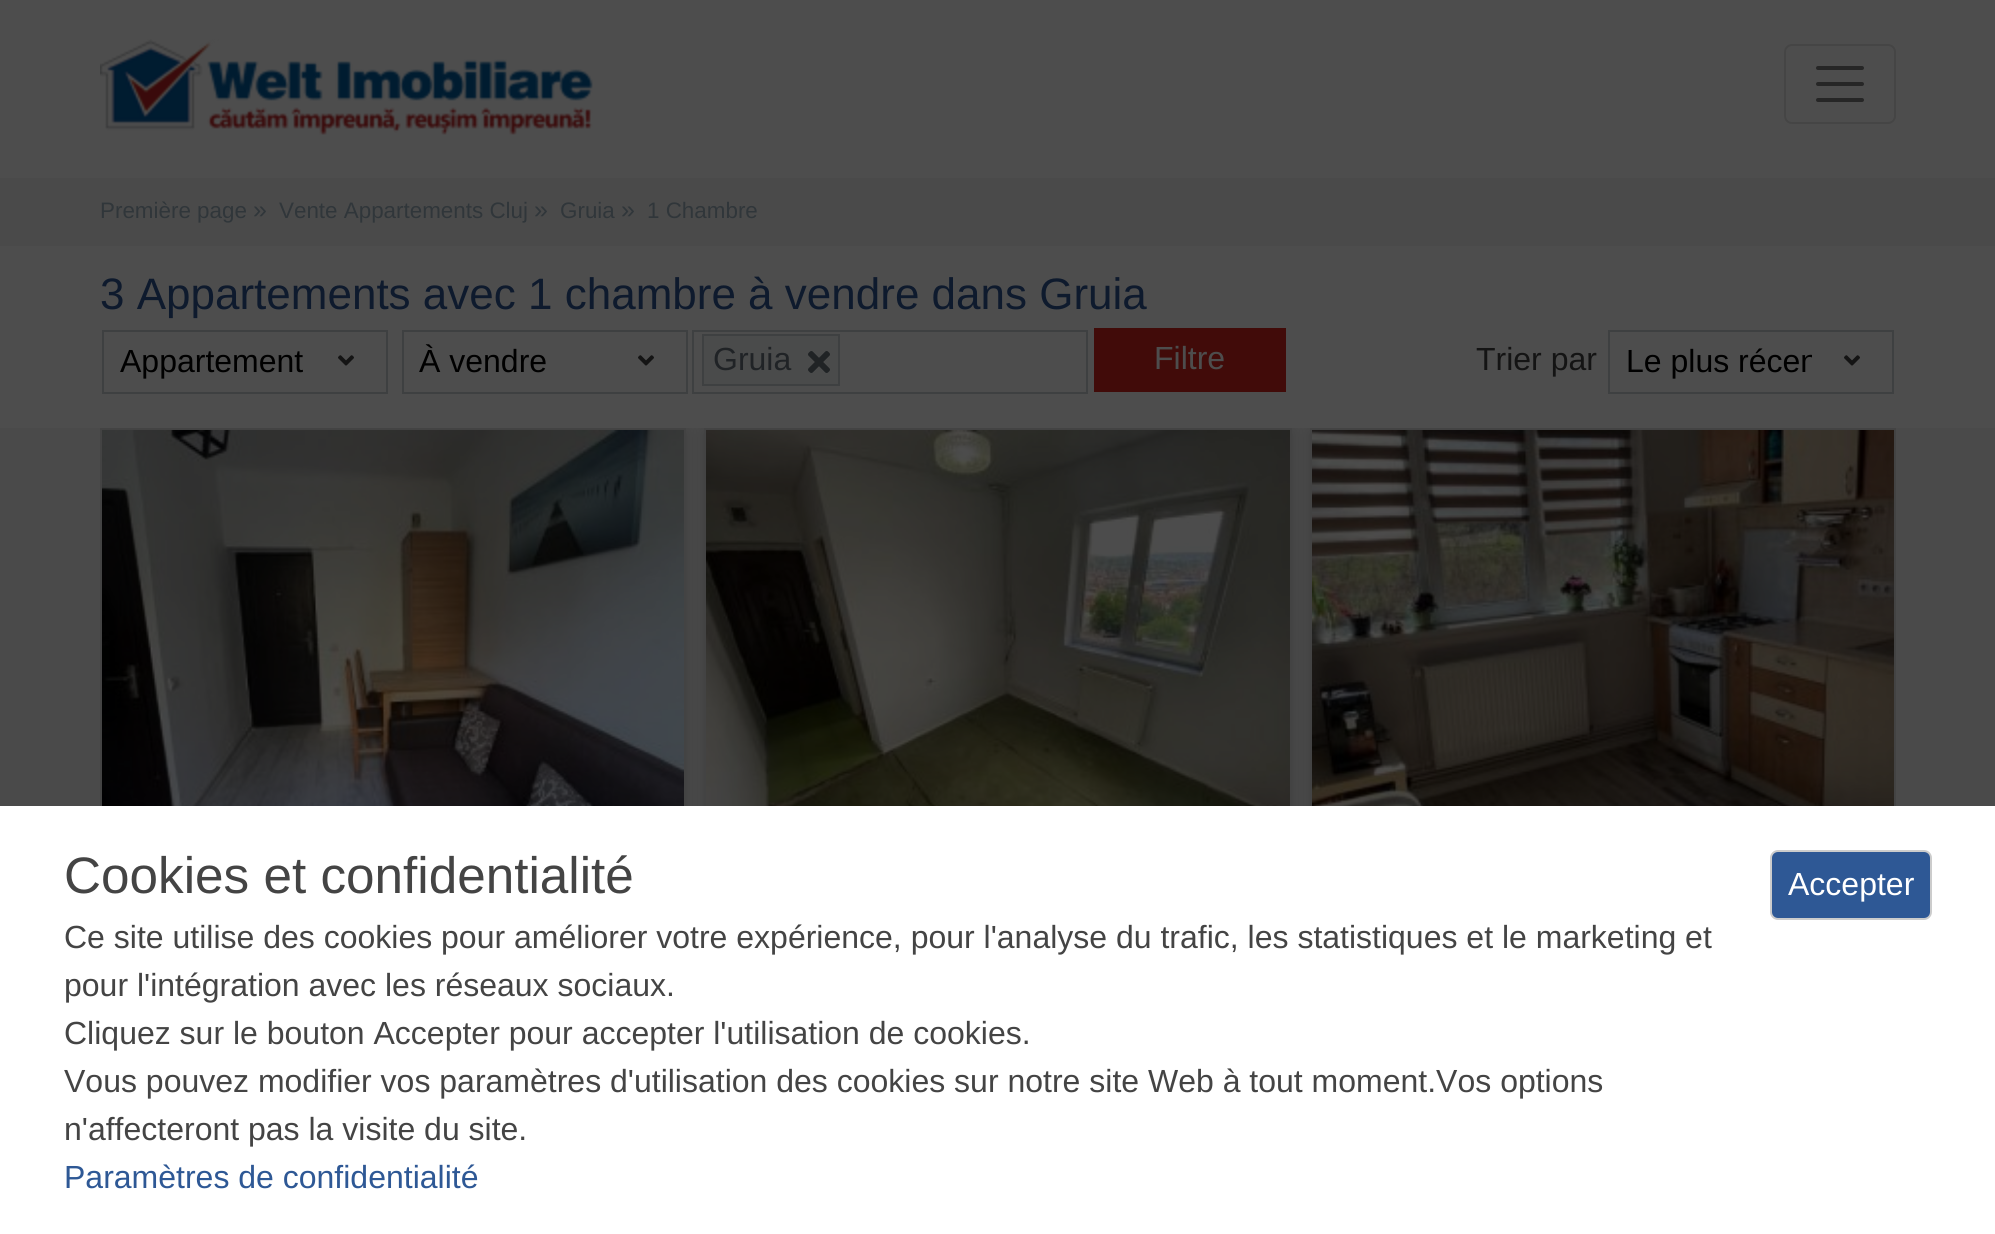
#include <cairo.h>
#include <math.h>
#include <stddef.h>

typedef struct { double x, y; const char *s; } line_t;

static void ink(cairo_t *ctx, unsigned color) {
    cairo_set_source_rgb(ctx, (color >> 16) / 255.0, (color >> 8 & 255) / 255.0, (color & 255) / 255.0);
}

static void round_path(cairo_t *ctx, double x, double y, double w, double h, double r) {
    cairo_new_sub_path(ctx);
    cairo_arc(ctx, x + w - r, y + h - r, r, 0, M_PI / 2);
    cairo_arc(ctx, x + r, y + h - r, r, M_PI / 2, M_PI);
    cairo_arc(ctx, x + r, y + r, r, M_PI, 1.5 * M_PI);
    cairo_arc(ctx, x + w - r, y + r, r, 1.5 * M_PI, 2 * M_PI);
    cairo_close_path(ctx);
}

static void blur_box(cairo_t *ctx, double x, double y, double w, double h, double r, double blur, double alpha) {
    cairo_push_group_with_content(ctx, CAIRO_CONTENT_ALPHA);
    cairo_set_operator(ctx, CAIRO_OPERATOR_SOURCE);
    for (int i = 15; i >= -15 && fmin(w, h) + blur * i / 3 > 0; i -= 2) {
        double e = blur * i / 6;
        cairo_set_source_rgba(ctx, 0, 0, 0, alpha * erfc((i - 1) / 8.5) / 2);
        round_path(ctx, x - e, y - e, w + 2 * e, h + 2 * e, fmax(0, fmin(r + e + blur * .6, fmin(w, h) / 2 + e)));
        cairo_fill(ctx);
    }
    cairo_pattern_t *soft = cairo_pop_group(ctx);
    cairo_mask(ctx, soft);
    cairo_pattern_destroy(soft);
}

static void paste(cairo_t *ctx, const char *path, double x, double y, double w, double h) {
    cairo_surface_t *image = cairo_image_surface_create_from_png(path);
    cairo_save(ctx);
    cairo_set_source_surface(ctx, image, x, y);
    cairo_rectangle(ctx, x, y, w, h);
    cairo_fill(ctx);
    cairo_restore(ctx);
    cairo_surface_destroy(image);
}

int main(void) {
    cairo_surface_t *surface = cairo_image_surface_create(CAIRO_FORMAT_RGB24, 1995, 1234);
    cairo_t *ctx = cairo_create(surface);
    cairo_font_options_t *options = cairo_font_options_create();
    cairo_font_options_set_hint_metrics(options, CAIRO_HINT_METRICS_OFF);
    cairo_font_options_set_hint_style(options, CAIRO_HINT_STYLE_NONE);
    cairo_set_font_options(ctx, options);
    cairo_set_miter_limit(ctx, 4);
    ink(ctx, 0x4A4A4A);
    cairo_paint(ctx);
    ink(ctx, 0x4D4D4D);
    cairo_rectangle(ctx, 0, 0, 1995, 178);
    cairo_fill(ctx);
    paste(ctx, "media/1.png", 100, 39, 493, 96);
    round_path(ctx, 1785, 45, 110, 78, 7);
    ink(ctx, 0x454545);
    cairo_stroke(ctx);
    cairo_new_path(ctx);
    cairo_move_to(ctx, 1818, 68);
    cairo_line_to(ctx, 1862, 68);
    cairo_move_to(ctx, 1818, 84);
    cairo_line_to(ctx, 1862, 84);
    cairo_move_to(ctx, 1818, 100);
    cairo_line_to(ctx, 1862, 100);
    ink(ctx, 0x262626);
    cairo_set_line_width(ctx, 4);
    cairo_set_line_cap(ctx, CAIRO_LINE_CAP_ROUND);
    cairo_stroke(ctx);
    cairo_select_font_face(ctx, "Liberation Sans", CAIRO_FONT_SLANT_NORMAL, CAIRO_FONT_WEIGHT_NORMAL);
    cairo_set_font_size(ctx, 22.4);
    ink(ctx, 0x30363A);
    cairo_move_to(ctx, 100, 218);
    cairo_show_text(ctx, "Première page");
    cairo_set_font_size(ctx, 25);
    cairo_move_to(ctx, 253, 218);
    cairo_show_text(ctx, "»");
    cairo_set_font_size(ctx, 22.4);
    cairo_move_to(ctx, 279, 218);
    cairo_show_text(ctx, "Vente Appartements Cluj");
    cairo_set_font_size(ctx, 25);
    cairo_move_to(ctx, 534, 218);
    cairo_show_text(ctx, "»");
    cairo_set_font_size(ctx, 22.4);
    cairo_move_to(ctx, 560, 218);
    cairo_show_text(ctx, "Gruia");
    cairo_set_font_size(ctx, 25);
    cairo_move_to(ctx, 621, 218);
    cairo_show_text(ctx, "»");
    cairo_set_font_size(ctx, 22.4);
    cairo_move_to(ctx, 647, 218);
    cairo_show_text(ctx, "1 Chambre");
    ink(ctx, 0x4D4D4D);
    cairo_rectangle(ctx, 0, 246, 1995, 182);
    cairo_fill(ctx);
    cairo_set_font_size(ctx, 44);
    ink(ctx, 0x0E1A2D);
    cairo_move_to(ctx, 100, 309);
    cairo_show_text(ctx, "3 Appartements avec 1 chambre à vendre dans Gruia");
    cairo_rectangle(ctx, 103, 331, 284, 62);
    ink(ctx, 0x3E4041);
    cairo_set_line_width(ctx, 2);
    cairo_set_line_cap(ctx, CAIRO_LINE_CAP_BUTT);
    cairo_stroke(ctx);
    cairo_set_font_size(ctx, 32);
    ink(ctx, 0x000000);
    cairo_move_to(ctx, 120, 372);
    cairo_show_text(ctx, "Appartement");
    paste(ctx, "media/2.png", 338, 355, 16, 11);
    cairo_rectangle(ctx, 403, 331, 284, 62);
    ink(ctx, 0x3E4041);
    cairo_stroke(ctx);
    ink(ctx, 0x000000);
    cairo_move_to(ctx, 419, 372);
    cairo_show_text(ctx, "À vendre");
    paste(ctx, "media/2.png", 638, 355, 16, 11);
    cairo_rectangle(ctx, 693, 331, 394, 62);
    ink(ctx, 0x3E4041);
    cairo_stroke(ctx);
    ink(ctx, 0x4A4B4B);
    cairo_rectangle(ctx, 703, 335, 136, 50);
    cairo_fill_preserve(ctx);
    ink(ctx, 0x3E4041);
    cairo_stroke(ctx);
    ink(ctx, 0x202326);
    cairo_move_to(ctx, 713, 370);
    cairo_show_text(ctx, "Gruia");
    paste(ctx, "media/3.png", 808, 351, 22, 22);
    ink(ctx, 0x410B09);
    cairo_rectangle(ctx, 1094, 328, 192, 64);
    cairo_fill(ctx);
    ink(ctx, 0x4D4D4D);
    cairo_move_to(ctx, 1154, 369);
    cairo_show_text(ctx, "Filtre");
    ink(ctx, 0x141414);
    cairo_move_to(ctx, 1476, 370);
    cairo_show_text(ctx, "Trier par");
    cairo_rectangle(ctx, 1609, 331, 284, 62);
    ink(ctx, 0x3E4041);
    cairo_stroke(ctx);
    cairo_save(ctx);
    cairo_rectangle(ctx, 1626, 338, 186, 48);
    cairo_clip(ctx);
    ink(ctx, 0x000000);
    cairo_move_to(ctx, 1626, 372);
    cairo_show_text(ctx, "Le plus récen");
    cairo_restore(ctx);
    paste(ctx, "media/2.png", 1844, 355, 16, 11);
    cairo_save(ctx);
    cairo_rectangle(ctx, 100, 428, 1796, 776);
    cairo_clip(ctx);
    ink(ctx, 0x000000);
    blur_box(ctx, 100, 432, 586, 682, 0, 8, 0.16);
    cairo_restore(ctx);
    cairo_rectangle(ctx, 101, 429, 584, 458);
    ink(ctx, 0x434343);
    cairo_stroke(ctx);
    paste(ctx, "media/4.png", 102, 430, 582, 376);
    cairo_save(ctx);
    cairo_rectangle(ctx, 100, 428, 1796, 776);
    cairo_clip(ctx);
    ink(ctx, 0x000000);
    blur_box(ctx, 704, 432, 588, 744, 0, 8, 0.16);
    cairo_restore(ctx);
    cairo_rectangle(ctx, 705, 429, 586, 458);
    cairo_stroke(ctx);
    paste(ctx, "media/5.png", 706, 430, 584, 376);
    cairo_save(ctx);
    cairo_rectangle(ctx, 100, 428, 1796, 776);
    cairo_clip(ctx);
    ink(ctx, 0x000000);
    blur_box(ctx, 1310, 432, 586, 682, 0, 8, 0.16);
    cairo_restore(ctx);
    cairo_rectangle(ctx, 1311, 429, 584, 458);
    cairo_stroke(ctx);
    paste(ctx, "media/6.png", 1312, 430, 582, 376);
    ink(ctx, 0xFFFFFF);
    cairo_rectangle(ctx, 0, 806, 1995, 428);
    cairo_fill(ctx);
    cairo_set_font_size(ctx, 51.25);
    ink(ctx, 0x444444);
    cairo_move_to(ctx, 64, 893);
    cairo_show_text(ctx, "Cookies et confidentialité");
    cairo_set_font_size(ctx, 32);
    {
        static const line_t items[] = {
            {64, 948, "Ce site utilise des cookies pour améliorer votre expérience, pour l'analyse du trafic, les statistiques et le marketing et"},
            {64, 996, "pour l'intégration avec les réseaux sociaux."},
            {64, 1044, "Cliquez sur le bouton Accepter pour accepter l'utilisation de cookies."},
            {64, 1092, "Vous pouvez modifier vos paramètres d'utilisation des cookies sur notre site Web à tout moment.Vos options"},
            {64, 1140, "n'affecteront pas la visite du site."},
        };
        for (size_t i = 0; i < sizeof items / sizeof *items; i++) {
            cairo_move_to(ctx, items[i].x, items[i].y);
            cairo_show_text(ctx, items[i].s);
        }
    }
    ink(ctx, 0x2E5895);
    cairo_move_to(ctx, 64, 1188);
    cairo_show_text(ctx, "Paramètres de confidentialité");
    round_path(ctx, 1771, 851, 160, 68, 7);
    cairo_fill_preserve(ctx);
    ink(ctx, 0xCCCCCC);
    cairo_stroke(ctx);
    ink(ctx, 0xFFFFFF);
    cairo_move_to(ctx, 1788, 895);
    cairo_show_text(ctx, "Accepter");
    cairo_surface_write_to_png(surface, "image.png");
    cairo_font_options_destroy(options);
    cairo_destroy(ctx);
    cairo_surface_destroy(surface);
    return 0;
}
